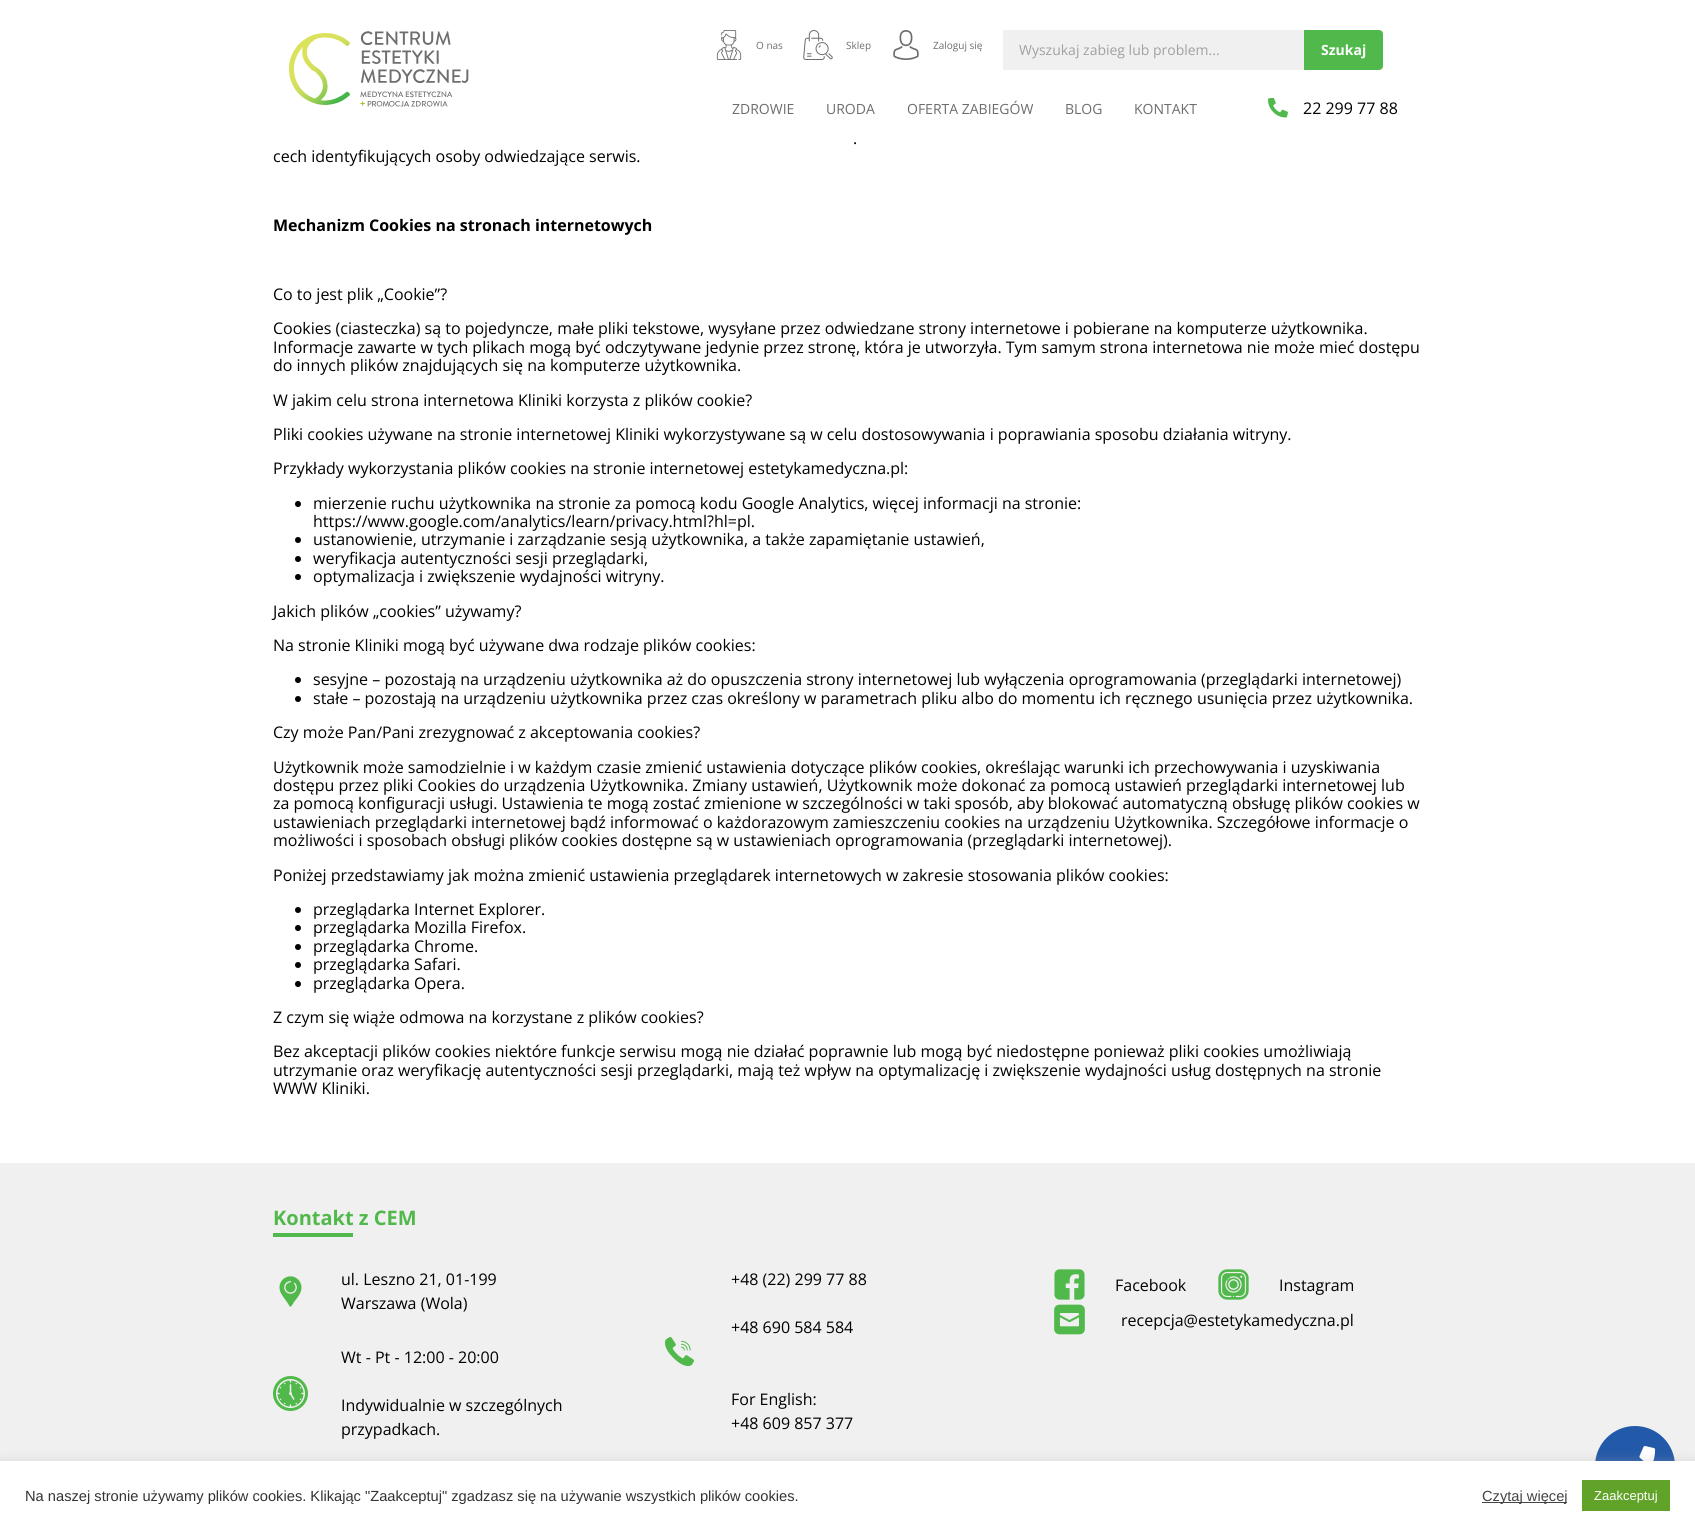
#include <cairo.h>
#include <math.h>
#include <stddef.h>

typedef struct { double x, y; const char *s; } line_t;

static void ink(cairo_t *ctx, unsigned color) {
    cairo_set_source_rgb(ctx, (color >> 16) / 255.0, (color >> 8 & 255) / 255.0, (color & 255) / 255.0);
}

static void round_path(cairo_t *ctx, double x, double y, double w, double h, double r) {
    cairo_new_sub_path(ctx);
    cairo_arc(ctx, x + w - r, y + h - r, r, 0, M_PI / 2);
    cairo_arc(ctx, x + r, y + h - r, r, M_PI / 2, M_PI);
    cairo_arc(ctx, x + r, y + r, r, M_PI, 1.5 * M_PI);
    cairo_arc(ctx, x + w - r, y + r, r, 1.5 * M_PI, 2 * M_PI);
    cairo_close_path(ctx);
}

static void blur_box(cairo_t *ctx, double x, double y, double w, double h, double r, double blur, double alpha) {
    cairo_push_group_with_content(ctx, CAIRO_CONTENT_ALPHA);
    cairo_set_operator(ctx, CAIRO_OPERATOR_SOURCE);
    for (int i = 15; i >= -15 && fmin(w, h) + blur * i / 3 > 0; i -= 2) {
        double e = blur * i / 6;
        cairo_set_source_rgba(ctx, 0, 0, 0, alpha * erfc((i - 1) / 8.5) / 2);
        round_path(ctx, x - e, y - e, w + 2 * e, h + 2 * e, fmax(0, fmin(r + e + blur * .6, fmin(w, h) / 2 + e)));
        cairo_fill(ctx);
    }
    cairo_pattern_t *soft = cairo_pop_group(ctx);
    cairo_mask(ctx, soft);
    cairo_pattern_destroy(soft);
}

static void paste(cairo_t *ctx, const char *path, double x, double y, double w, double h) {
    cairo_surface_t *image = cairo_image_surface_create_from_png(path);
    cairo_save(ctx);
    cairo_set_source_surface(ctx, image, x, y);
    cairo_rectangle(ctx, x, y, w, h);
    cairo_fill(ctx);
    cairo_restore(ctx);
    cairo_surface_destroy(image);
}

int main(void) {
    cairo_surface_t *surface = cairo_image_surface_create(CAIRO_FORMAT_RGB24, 1695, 1530);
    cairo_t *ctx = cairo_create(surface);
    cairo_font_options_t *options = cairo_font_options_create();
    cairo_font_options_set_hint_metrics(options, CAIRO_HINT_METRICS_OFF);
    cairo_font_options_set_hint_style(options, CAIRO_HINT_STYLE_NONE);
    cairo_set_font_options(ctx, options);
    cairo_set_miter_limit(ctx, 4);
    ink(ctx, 0xFFFFFF);
    cairo_paint(ctx);
    paste(ctx, "media/1.png", 289, 31, 180, 76);
    paste(ctx, "media/2.png", 716, 30, 26, 30);
    cairo_select_font_face(ctx, "Open Sans", CAIRO_FONT_SLANT_NORMAL, CAIRO_FONT_WEIGHT_NORMAL);
    cairo_set_font_size(ctx, 10);
    ink(ctx, 0x6C6D6F);
    cairo_move_to(ctx, 756, 49);
    cairo_show_text(ctx, "O nas");
    paste(ctx, "media/3.png", 803, 30, 30, 30);
    cairo_move_to(ctx, 846, 49);
    cairo_show_text(ctx, "Sklep");
    paste(ctx, "media/4.png", 893, 30, 26, 30);
    cairo_move_to(ctx, 933, 49);
    cairo_show_text(ctx, "Zaloguj się");
    ink(ctx, 0xF0F0F0);
    cairo_rectangle(ctx, 1003, 30, 380, 40);
    cairo_fill(ctx);
    cairo_set_font_size(ctx, 14);
    ink(ctx, 0xA1A1A3);
    cairo_move_to(ctx, 1019, 55);
    cairo_show_text(ctx, "Wyszukaj zabieg lub problem...");
    ink(ctx, 0x51B94B);
    cairo_new_path(ctx);
    cairo_move_to(ctx, 1304, 30);
    cairo_line_to(ctx, 1379, 30);
    cairo_curve_to(ctx, 1381, 30, 1383, 32, 1383, 34);
    cairo_line_to(ctx, 1383, 66);
    cairo_curve_to(ctx, 1383, 68, 1381, 70, 1379, 70);
    cairo_line_to(ctx, 1304, 70);
    cairo_close_path(ctx);
    cairo_fill(ctx);
    cairo_select_font_face(ctx, "Open Sans", CAIRO_FONT_SLANT_NORMAL, CAIRO_FONT_WEIGHT_BOLD);
    ink(ctx, 0xFFFFFF);
    cairo_move_to(ctx, 1321, 55);
    cairo_show_text(ctx, "Szukaj");
    cairo_select_font_face(ctx, "Open Sans", CAIRO_FONT_SLANT_NORMAL, CAIRO_FONT_WEIGHT_NORMAL);
    ink(ctx, 0x6C6D6F);
    {
        static const line_t items[] = {
            {732, 114, "ZDROWIE"},
            {826, 114, "URODA"},
            {907, 114, "OFERTA ZABIEGÓW"},
            {1065, 114, "BLOG"},
            {1134, 114, "KONTAKT"},
        };
        for (size_t i = 0; i < sizeof items / sizeof *items; i++) {
            cairo_move_to(ctx, items[i].x, items[i].y);
            cairo_show_text(ctx, items[i].s);
        }
    }
    paste(ctx, "media/5.png", 1268, 98, 20, 20);
    cairo_set_font_size(ctx, 16);
    ink(ctx, 0x000000);
    {
        static const line_t items[] = {
            {1303, 114, "22 299 77 88"},
            {853, 144, "."},
            {273, 162, "cech identyfikujących osoby odwiedzające serwis."},
        };
        for (size_t i = 0; i < sizeof items / sizeof *items; i++) {
            cairo_move_to(ctx, items[i].x, items[i].y);
            cairo_show_text(ctx, items[i].s);
        }
    }
    cairo_select_font_face(ctx, "Open Sans", CAIRO_FONT_SLANT_NORMAL, CAIRO_FONT_WEIGHT_BOLD);
    cairo_move_to(ctx, 273, 231);
    cairo_show_text(ctx, "Mechanizm Cookies na stronach internetowych");
    cairo_select_font_face(ctx, "Open Sans", CAIRO_FONT_SLANT_NORMAL, CAIRO_FONT_WEIGHT_NORMAL);
    {
        static const line_t items[] = {
            {273, 300, "Co to jest plik „Cookie”?"},
            {273, 334, "Cookies (ciasteczka) są to pojedyncze, małe pliki tekstowe, wysyłane przez odwiedzane strony internetowe i pobierane na komputerze użytkownika."},
            {273, 353, "Informacje zawarte w tych plikach mogą być odczytywane jedynie przez stronę, która je utworzyła. Tym samym strona internetowa nie może mieć dostępu"},
            {273, 371, "do innych plików znajdujących się na komputerze użytkownika."},
            {273, 406, "W jakim celu strona internetowa Kliniki korzysta z plików cookie?"},
            {273, 440, "Pliki cookies używane na stronie internetowej Kliniki wykorzystywane są w celu dostosowywania i poprawiania sposobu działania witryny."},
            {273, 474, "Przykłady wykorzystania plików cookies na stronie internetowej estetykamedyczna.pl:"},
        };
        for (size_t i = 0; i < sizeof items / sizeof *items; i++) {
            cairo_move_to(ctx, items[i].x, items[i].y);
            cairo_show_text(ctx, items[i].s);
        }
    }
    cairo_new_path(ctx);
    cairo_arc(ctx, 298, 504, 3, 0, 2 * M_PI);
    cairo_fill(ctx);
    cairo_move_to(ctx, 313, 509);
    cairo_show_text(ctx, "mierzenie ruchu użytkownika na stronie za pomocą kodu Google Analytics, więcej informacji na stronie:");
    cairo_move_to(ctx, 313, 527);
    cairo_show_text(ctx, "https://www.google.com/analytics/learn/privacy.html?hl=pl.");
    cairo_new_path(ctx);
    cairo_arc(ctx, 298, 540, 3, 0, 2 * M_PI);
    cairo_fill(ctx);
    cairo_move_to(ctx, 313, 545);
    cairo_show_text(ctx, "ustanowienie, utrzymanie i zarządzanie sesją użytkownika, a także zapamiętanie ustawień,");
    cairo_new_path(ctx);
    cairo_arc(ctx, 298, 559, 3, 0, 2 * M_PI);
    cairo_fill(ctx);
    cairo_move_to(ctx, 313, 564);
    cairo_show_text(ctx, "weryfikacja autentyczności sesji przeglądarki,");
    cairo_new_path(ctx);
    cairo_arc(ctx, 298, 577, 3, 0, 2 * M_PI);
    cairo_fill(ctx);
    {
        static const line_t items[] = {
            {313, 582, "optymalizacja i zwiększenie wydajności witryny."},
            {273, 617, "Jakich plików „cookies” używamy?"},
            {273, 651, "Na stronie Kliniki mogą być używane dwa rodzaje plików cookies:"},
        };
        for (size_t i = 0; i < sizeof items / sizeof *items; i++) {
            cairo_move_to(ctx, items[i].x, items[i].y);
            cairo_show_text(ctx, items[i].s);
        }
    }
    cairo_new_path(ctx);
    cairo_arc(ctx, 298, 680, 3, 0, 2 * M_PI);
    cairo_fill(ctx);
    cairo_move_to(ctx, 313, 685);
    cairo_show_text(ctx, "sesyjne – pozostają na urządzeniu użytkownika aż do opuszczenia strony internetowej lub wyłączenia oprogramowania (przeglądarki internetowej)");
    cairo_new_path(ctx);
    cairo_arc(ctx, 298, 699, 3, 0, 2 * M_PI);
    cairo_fill(ctx);
    {
        static const line_t items[] = {
            {313, 704, "stałe – pozostają na urządzeniu użytkownika przez czas określony w parametrach pliku albo do momentu ich ręcznego usunięcia przez użytkownika."},
            {273, 738, "Czy może Pan/Pani zrezygnować z akceptowania cookies?"},
            {273, 773, "Użytkownik może samodzielnie i w każdym czasie zmienić ustawienia dotyczące plików cookies, określając warunki ich przechowywania i uzyskiwania"},
            {273, 791, "dostępu przez pliki Cookies do urządzenia Użytkownika. Zmiany ustawień, Użytkownik może dokonać za pomocą ustawień przeglądarki internetowej lub"},
            {273, 809, "za pomocą konfiguracji usługi. Ustawienia te mogą zostać zmienione w szczególności w taki sposób, aby blokować automatyczną obsługę plików cookies w"},
            {273, 828, "ustawieniach przeglądarki internetowej bądź informować o każdorazowym zamieszczeniu cookies na urządzeniu Użytkownika. Szczegółowe informacje o"},
            {273, 846, "możliwości i sposobach obsługi plików cookies dostępne są w ustawieniach oprogramowania (przeglądarki internetowej)."},
            {273, 881, "Poniżej przedstawiamy jak można zmienić ustawienia przeglądarek internetowych w zakresie stosowania plików cookies:"},
        };
        for (size_t i = 0; i < sizeof items / sizeof *items; i++) {
            cairo_move_to(ctx, items[i].x, items[i].y);
            cairo_show_text(ctx, items[i].s);
        }
    }
    cairo_new_path(ctx);
    cairo_arc(ctx, 298, 910, 3, 0, 2 * M_PI);
    cairo_fill(ctx);
    cairo_move_to(ctx, 313, 915);
    cairo_show_text(ctx, "przeglądarka Internet Explorer.");
    cairo_new_path(ctx);
    cairo_arc(ctx, 298, 928, 3, 0, 2 * M_PI);
    cairo_fill(ctx);
    cairo_move_to(ctx, 313, 933);
    cairo_show_text(ctx, "przeglądarka Mozilla Firefox.");
    cairo_new_path(ctx);
    cairo_arc(ctx, 298, 947, 3, 0, 2 * M_PI);
    cairo_fill(ctx);
    cairo_move_to(ctx, 313, 952);
    cairo_show_text(ctx, "przeglądarka Chrome.");
    cairo_new_path(ctx);
    cairo_arc(ctx, 298, 965, 3, 0, 2 * M_PI);
    cairo_fill(ctx);
    cairo_move_to(ctx, 313, 970);
    cairo_show_text(ctx, "przeglądarka Safari.");
    cairo_new_path(ctx);
    cairo_arc(ctx, 298, 984, 3, 0, 2 * M_PI);
    cairo_fill(ctx);
    {
        static const line_t items[] = {
            {313, 989, "przeglądarka Opera."},
            {273, 1023, "Z czym się wiąże odmowa na korzystane z plików cookies?"},
            {273, 1057, "Bez akceptacji plików cookies niektóre funkcje serwisu mogą nie działać poprawnie lub mogą być niedostępne ponieważ pliki cookies umożliwiają"},
            {273, 1076, "utrzymanie oraz weryfikację autentyczności sesji przeglądarki, mają też wpływ na optymalizację i zwiększenie wydajności usług dostępnych na stronie"},
            {273, 1094, "WWW Kliniki."},
        };
        for (size_t i = 0; i < sizeof items / sizeof *items; i++) {
            cairo_move_to(ctx, items[i].x, items[i].y);
            cairo_show_text(ctx, items[i].s);
        }
    }
    ink(ctx, 0xF0F0F0);
    cairo_rectangle(ctx, 0, 1163, 1695, 298);
    cairo_fill(ctx);
    cairo_select_font_face(ctx, "Open Sans", CAIRO_FONT_SLANT_NORMAL, CAIRO_FONT_WEIGHT_BOLD);
    cairo_set_font_size(ctx, 20);
    ink(ctx, 0x51B94B);
    cairo_move_to(ctx, 273, 1225);
    cairo_show_text(ctx, "Kontakt z CEM");
    cairo_rectangle(ctx, 273, 1233, 80, 4);
    cairo_fill(ctx);
    paste(ctx, "media/6.png", 279, 1276, 23, 31);
    cairo_select_font_face(ctx, "Open Sans", CAIRO_FONT_SLANT_NORMAL, CAIRO_FONT_WEIGHT_NORMAL);
    cairo_set_font_size(ctx, 16);
    ink(ctx, 0x000000);
    cairo_move_to(ctx, 341, 1285);
    cairo_show_text(ctx, "ul. Leszno 21, 01-199");
    cairo_move_to(ctx, 341, 1309);
    cairo_show_text(ctx, "Warszawa (Wola)");
    paste(ctx, "media/7.png", 273, 1376, 35, 35);
    {
        static const line_t items[] = {
            {341, 1363, "Wt - Pt - 12:00 - 20:00"},
            {341, 1411, "Indywidualnie w szczególnych"},
            {341, 1435, "przypadkach."},
        };
        for (size_t i = 0; i < sizeof items / sizeof *items; i++) {
            cairo_move_to(ctx, items[i].x, items[i].y);
            cairo_show_text(ctx, items[i].s);
        }
    }
    paste(ctx, "media/8.png", 665, 1337, 29, 29);
    {
        static const line_t items[] = {
            {731, 1285, "+48 (22) 299 77 88"},
            {731, 1333, "+48 690 584 584"},
            {731, 1405, "For English:"},
            {731, 1429, "+48 609 857 377"},
        };
        for (size_t i = 0; i < sizeof items / sizeof *items; i++) {
            cairo_move_to(ctx, items[i].x, items[i].y);
            cairo_show_text(ctx, items[i].s);
        }
    }
    paste(ctx, "media/9.png", 1054, 1269, 31, 31);
    cairo_move_to(ctx, 1115, 1291);
    cairo_show_text(ctx, "Facebook");
    paste(ctx, "media/10.png", 1218, 1269, 31, 31);
    cairo_move_to(ctx, 1279, 1291);
    cairo_show_text(ctx, "Instagram");
    paste(ctx, "media/11.png", 1054, 1304, 31, 31);
    cairo_move_to(ctx, 1121, 1326);
    cairo_show_text(ctx, "recepcja@estetykamedyczna.pl");
    ink(ctx, 0x2259A8);
    cairo_new_path(ctx);
    cairo_arc(ctx, 1635, 1466, 40, 0, 2 * M_PI);
    cairo_fill(ctx);
    paste(ctx, "media/12.png", 1639, 1446, 17, 15);
    ink(ctx, 0xACABAB);
    blur_box(ctx, 0, 1460, 1695, 69, 0, 5, 0.3);
    ink(ctx, 0xFFFFFF);
    cairo_rectangle(ctx, 0, 1461, 1695, 69);
    cairo_fill(ctx);
    cairo_select_font_face(ctx, "Liberation Sans", CAIRO_FONT_SLANT_NORMAL, CAIRO_FONT_WEIGHT_NORMAL);
    cairo_set_font_size(ctx, 14.67);
    ink(ctx, 0x333333);
    cairo_move_to(ctx, 25, 1501);
    cairo_show_text(ctx, "Na naszej stronie używamy plików cookies. Klikając \"Zaakceptuj\" zgadzasz się na używanie wszystkich plików cookies.");
    ink(ctx, 0x444444);
    cairo_rectangle(ctx, 1482, 1502, 85, 1);
    cairo_fill(ctx);
    cairo_move_to(ctx, 1482, 1501);
    cairo_show_text(ctx, "Czytaj więcej");
    ink(ctx, 0x61A229);
    cairo_rectangle(ctx, 1582, 1480, 88, 31);
    cairo_fill(ctx);
    cairo_set_font_size(ctx, 13);
    ink(ctx, 0xFFFFFF);
    cairo_move_to(ctx, 1594, 1500);
    cairo_show_text(ctx, "Zaakceptuj");
    cairo_surface_write_to_png(surface, "image.png");
    cairo_font_options_destroy(options);
    cairo_destroy(ctx);
    cairo_surface_destroy(surface);
    return 0;
}
